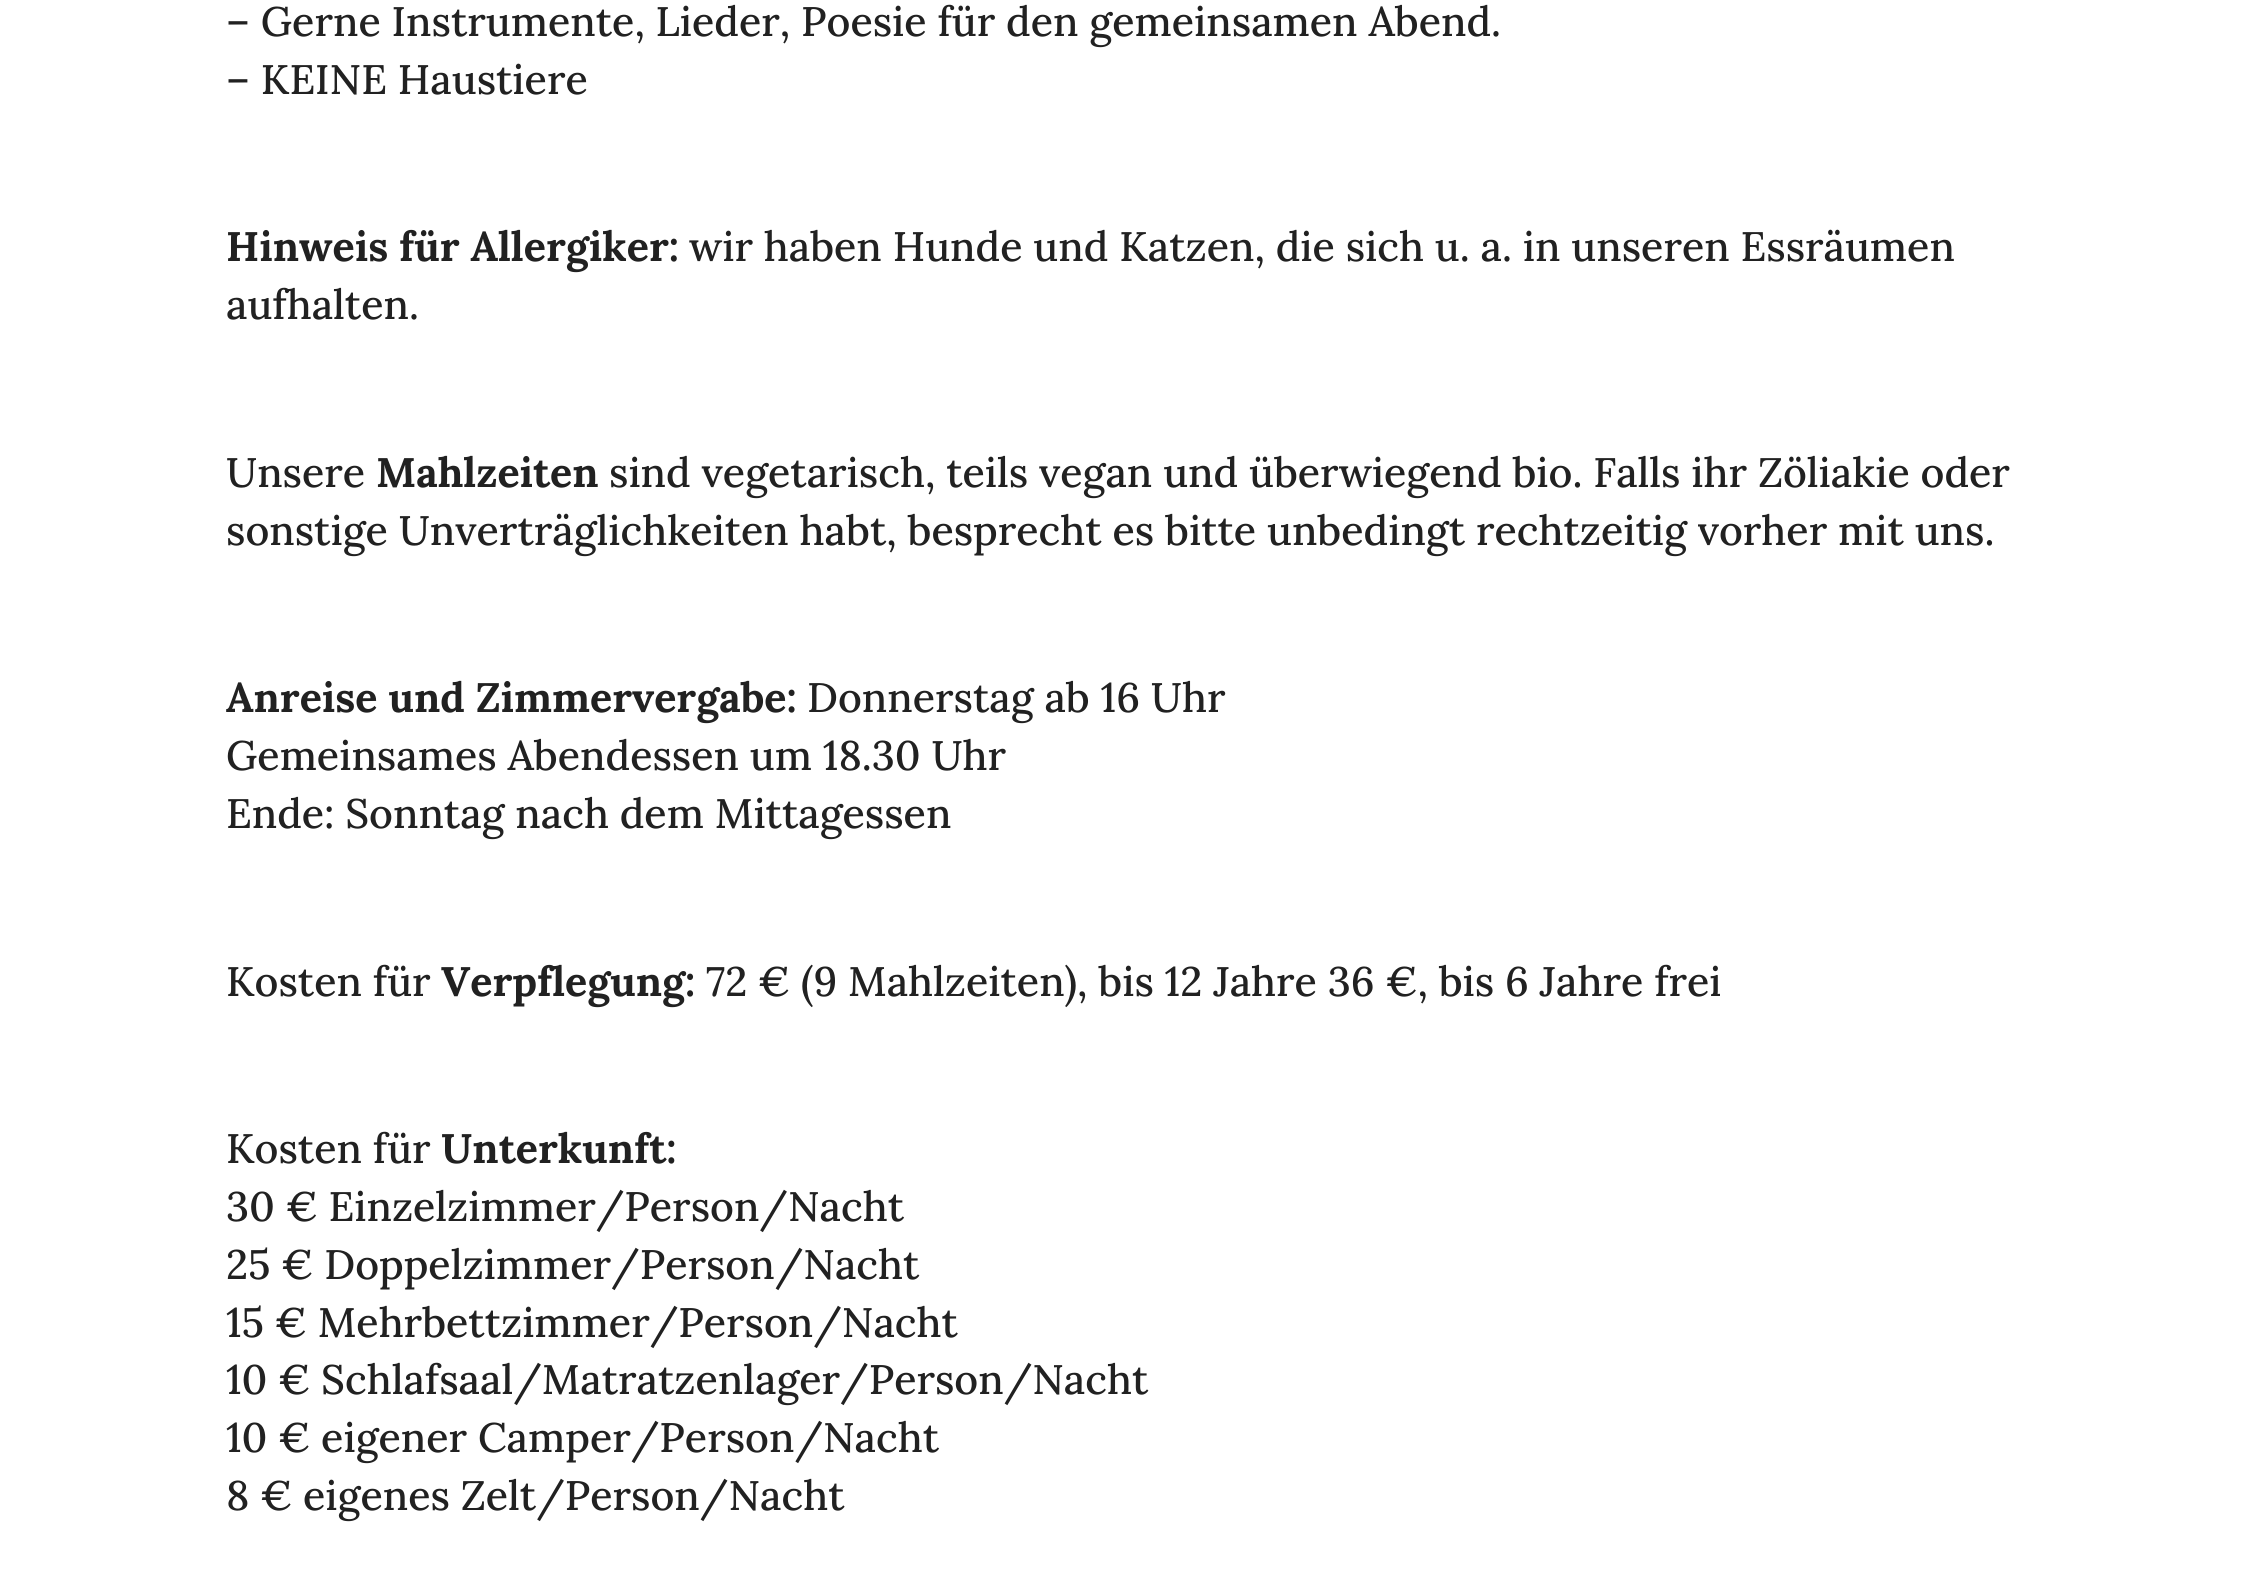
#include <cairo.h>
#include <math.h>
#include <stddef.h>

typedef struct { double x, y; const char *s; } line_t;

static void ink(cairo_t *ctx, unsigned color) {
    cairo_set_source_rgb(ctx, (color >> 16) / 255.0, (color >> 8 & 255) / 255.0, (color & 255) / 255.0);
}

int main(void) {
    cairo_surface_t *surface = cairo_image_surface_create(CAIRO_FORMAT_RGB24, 2253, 1581);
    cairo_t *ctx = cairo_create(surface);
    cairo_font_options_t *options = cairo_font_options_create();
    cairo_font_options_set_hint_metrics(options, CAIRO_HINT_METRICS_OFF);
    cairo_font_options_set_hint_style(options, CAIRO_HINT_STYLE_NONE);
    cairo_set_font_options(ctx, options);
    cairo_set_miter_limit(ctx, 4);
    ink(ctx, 0xFFFFFF);
    cairo_paint(ctx);
    cairo_select_font_face(ctx, "Lora Medium", CAIRO_FONT_SLANT_NORMAL, CAIRO_FONT_WEIGHT_NORMAL);
    cairo_set_font_size(ctx, 41.25);
    ink(ctx, 0x212121);
    cairo_move_to(ctx, 226, 36);
    cairo_show_text(ctx, "– Gerne Instrumente, Lieder, Poesie für den gemeinsamen Abend.");
    cairo_move_to(ctx, 226, 94);
    cairo_show_text(ctx, "– KEINE Haustiere");
    cairo_select_font_face(ctx, "Lora", CAIRO_FONT_SLANT_NORMAL, CAIRO_FONT_WEIGHT_BOLD);
    cairo_move_to(ctx, 226, 261);
    cairo_show_text(ctx, "Hinweis für Allergiker:");
    cairo_select_font_face(ctx, "Lora Medium", CAIRO_FONT_SLANT_NORMAL, CAIRO_FONT_WEIGHT_NORMAL);
    {
        static const line_t items[] = {
            {689, 261, "wir haben Hunde und Katzen, die sich u. a. in unseren Essräumen"},
            {226, 319, "aufhalten."},
            {226, 487, "Unsere"},
        };
        for (size_t i = 0; i < sizeof items / sizeof *items; i++) {
            cairo_move_to(ctx, items[i].x, items[i].y);
            cairo_show_text(ctx, items[i].s);
        }
    }
    cairo_select_font_face(ctx, "Lora", CAIRO_FONT_SLANT_NORMAL, CAIRO_FONT_WEIGHT_BOLD);
    cairo_move_to(ctx, 376, 487);
    cairo_show_text(ctx, "Mahlzeiten");
    cairo_select_font_face(ctx, "Lora Medium", CAIRO_FONT_SLANT_NORMAL, CAIRO_FONT_WEIGHT_NORMAL);
    cairo_move_to(ctx, 609, 487);
    cairo_show_text(ctx, "sind vegetarisch, teils vegan und überwiegend bio. Falls ihr Zöliakie oder");
    cairo_move_to(ctx, 226, 545);
    cairo_show_text(ctx, "sonstige Unverträglichkeiten habt, besprecht es bitte unbedingt rechtzeitig vorher mit uns.");
    cairo_select_font_face(ctx, "Lora", CAIRO_FONT_SLANT_NORMAL, CAIRO_FONT_WEIGHT_BOLD);
    cairo_move_to(ctx, 226, 712);
    cairo_show_text(ctx, "Anreise und Zimmervergabe:");
    cairo_select_font_face(ctx, "Lora Medium", CAIRO_FONT_SLANT_NORMAL, CAIRO_FONT_WEIGHT_NORMAL);
    {
        static const line_t items[] = {
            {807, 712, "Donnerstag ab 16 Uhr"},
            {226, 770, "Gemeinsames Abendessen um 18.30 Uhr"},
            {226, 828, "Ende: Sonntag nach dem Mittagessen"},
            {226, 996, "Kosten für"},
        };
        for (size_t i = 0; i < sizeof items / sizeof *items; i++) {
            cairo_move_to(ctx, items[i].x, items[i].y);
            cairo_show_text(ctx, items[i].s);
        }
    }
    cairo_select_font_face(ctx, "Lora", CAIRO_FONT_SLANT_NORMAL, CAIRO_FONT_WEIGHT_BOLD);
    cairo_move_to(ctx, 441, 996);
    cairo_show_text(ctx, "Verpflegung:");
    cairo_select_font_face(ctx, "Lora Medium", CAIRO_FONT_SLANT_NORMAL, CAIRO_FONT_WEIGHT_NORMAL);
    cairo_move_to(ctx, 706, 996);
    cairo_show_text(ctx, "72 € (9 Mahlzeiten), bis 12 Jahre 36 €, bis 6 Jahre frei");
    cairo_move_to(ctx, 226, 1163);
    cairo_show_text(ctx, "Kosten für");
    cairo_select_font_face(ctx, "Lora", CAIRO_FONT_SLANT_NORMAL, CAIRO_FONT_WEIGHT_BOLD);
    cairo_move_to(ctx, 441, 1163);
    cairo_show_text(ctx, "Unterkunft:");
    cairo_select_font_face(ctx, "Lora Medium", CAIRO_FONT_SLANT_NORMAL, CAIRO_FONT_WEIGHT_NORMAL);
    {
        static const line_t items[] = {
            {226, 1221, "30 € Einzelzimmer/Person/Nacht"},
            {226, 1279, "25 € Doppelzimmer/Person/Nacht"},
            {226, 1337, "15 € Mehrbettzimmer/Person/Nacht"},
            {226, 1394, "10 € Schlafsaal/Matratzenlager/Person/Nacht"},
            {226, 1452, "10 € eigener Camper/Person/Nacht"},
            {226, 1510, "8 € eigenes Zelt/Person/Nacht"},
        };
        for (size_t i = 0; i < sizeof items / sizeof *items; i++) {
            cairo_move_to(ctx, items[i].x, items[i].y);
            cairo_show_text(ctx, items[i].s);
        }
    }
    cairo_surface_write_to_png(surface, "image.png");
    cairo_font_options_destroy(options);
    cairo_destroy(ctx);
    cairo_surface_destroy(surface);
    return 0;
}
